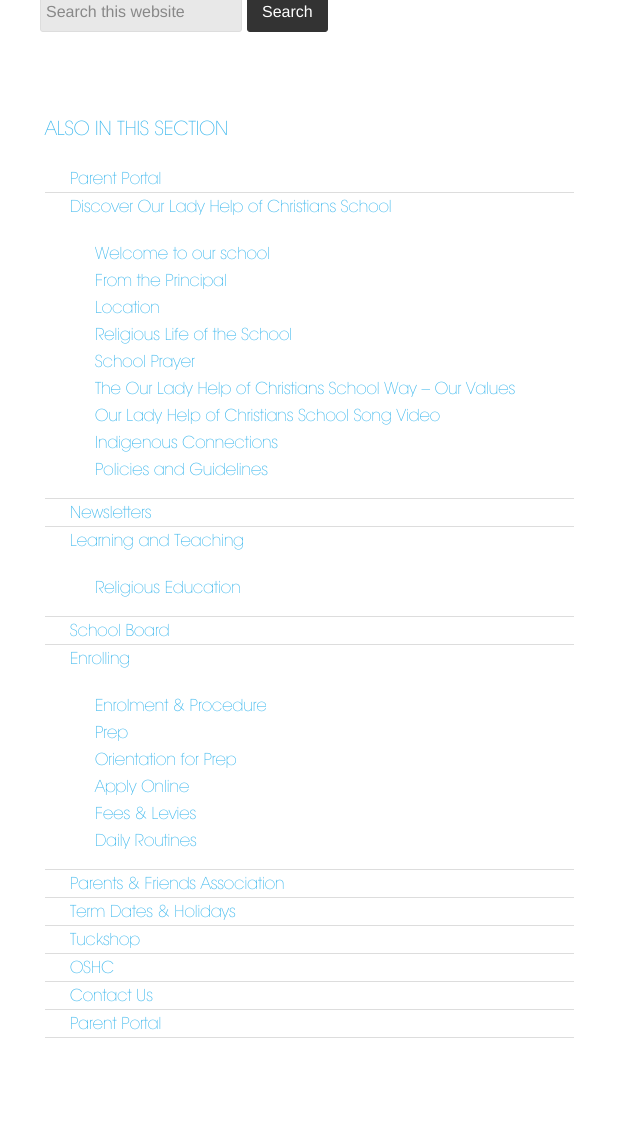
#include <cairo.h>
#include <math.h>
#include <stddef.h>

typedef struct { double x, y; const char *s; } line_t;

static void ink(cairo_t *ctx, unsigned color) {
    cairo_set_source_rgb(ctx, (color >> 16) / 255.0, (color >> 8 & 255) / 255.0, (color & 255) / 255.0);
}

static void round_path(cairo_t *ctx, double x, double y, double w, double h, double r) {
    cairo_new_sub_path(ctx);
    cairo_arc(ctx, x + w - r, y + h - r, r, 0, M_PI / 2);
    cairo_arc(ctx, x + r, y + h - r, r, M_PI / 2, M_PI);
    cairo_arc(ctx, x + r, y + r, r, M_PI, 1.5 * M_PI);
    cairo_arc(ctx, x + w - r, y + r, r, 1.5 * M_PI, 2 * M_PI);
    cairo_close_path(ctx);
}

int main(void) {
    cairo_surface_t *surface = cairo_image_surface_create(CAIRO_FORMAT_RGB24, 624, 1131);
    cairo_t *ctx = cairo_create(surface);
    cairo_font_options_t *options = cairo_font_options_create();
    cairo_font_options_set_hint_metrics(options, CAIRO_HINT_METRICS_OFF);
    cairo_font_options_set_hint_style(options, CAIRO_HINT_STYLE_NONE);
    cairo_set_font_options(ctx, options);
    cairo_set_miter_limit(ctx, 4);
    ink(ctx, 0xFFFFFF);
    cairo_paint(ctx);
    ink(ctx, 0xE8E8E8);
    round_path(ctx, 40.5, -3.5, 201, 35, 2.5);
    cairo_fill_preserve(ctx);
    ink(ctx, 0xDDDDDD);
    cairo_set_line_width(ctx, 1);
    cairo_stroke(ctx);
    cairo_select_font_face(ctx, "Liberation Sans", CAIRO_FONT_SLANT_NORMAL, CAIRO_FONT_WEIGHT_NORMAL);
    cairo_set_font_size(ctx, 16);
    ink(ctx, 0x888888);
    cairo_move_to(ctx, 46, 17);
    cairo_show_text(ctx, "Search this website");
    ink(ctx, 0x333333);
    round_path(ctx, 247.5, -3.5, 80, 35, 2.5);
    cairo_fill_preserve(ctx);
    cairo_stroke(ctx);
    ink(ctx, 0xFFFFFF);
    cairo_move_to(ctx, 262, 17);
    cairo_show_text(ctx, "Search");
    cairo_select_font_face(ctx, "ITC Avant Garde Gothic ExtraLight", CAIRO_FONT_SLANT_NORMAL, CAIRO_FONT_WEIGHT_NORMAL);
    cairo_set_font_size(ctx, 20);
    ink(ctx, 0x3EB8ED);
    cairo_move_to(ctx, 45, 135);
    cairo_show_text(ctx, "ALSO IN THIS SECTION");
    ink(ctx, 0xDDDDDD);
    cairo_rectangle(ctx, 45, 192, 529, 1);
    cairo_fill(ctx);
    cairo_set_font_size(ctx, 17);
    ink(ctx, 0x3EB8ED);
    cairo_move_to(ctx, 70, 184);
    cairo_show_text(ctx, "Parent Portal");
    ink(ctx, 0xDDDDDD);
    cairo_rectangle(ctx, 45, 498, 529, 1);
    cairo_fill(ctx);
    ink(ctx, 0x3EB8ED);
    {
        static const line_t items[] = {
            {70, 212, "Discover Our Lady Help of Christians School"},
            {95, 259, "Welcome to our school"},
            {95, 286, "From the Principal"},
            {95, 313, "Location"},
            {95, 340, "Religious Life of the School"},
            {95, 367, "School Prayer"},
            {95, 394, "The Our Lady Help of Christians School Way – Our Values"},
            {95, 421, "Our Lady Help of Christians School Song Video"},
            {95, 448, "Indigenous Connections"},
            {95, 475, "Policies and Guidelines"},
        };
        for (size_t i = 0; i < sizeof items / sizeof *items; i++) {
            cairo_move_to(ctx, items[i].x, items[i].y);
            cairo_show_text(ctx, items[i].s);
        }
    }
    ink(ctx, 0xDDDDDD);
    cairo_rectangle(ctx, 45, 526, 529, 1);
    cairo_fill(ctx);
    ink(ctx, 0x3EB8ED);
    cairo_move_to(ctx, 70, 518);
    cairo_show_text(ctx, "Newsletters");
    ink(ctx, 0xDDDDDD);
    cairo_rectangle(ctx, 45, 616, 529, 1);
    cairo_fill(ctx);
    ink(ctx, 0x3EB8ED);
    cairo_move_to(ctx, 70, 546);
    cairo_show_text(ctx, "Learning and Teaching");
    cairo_move_to(ctx, 95, 593);
    cairo_show_text(ctx, "Religious Education");
    ink(ctx, 0xDDDDDD);
    cairo_rectangle(ctx, 45, 644, 529, 1);
    cairo_fill(ctx);
    ink(ctx, 0x3EB8ED);
    cairo_move_to(ctx, 70, 636);
    cairo_show_text(ctx, "School Board");
    ink(ctx, 0xDDDDDD);
    cairo_rectangle(ctx, 45, 869, 529, 1);
    cairo_fill(ctx);
    ink(ctx, 0x3EB8ED);
    {
        static const line_t items[] = {
            {70, 664, "Enrolling"},
            {95, 711, "Enrolment & Procedure"},
            {95, 738, "Prep"},
            {95, 765, "Orientation for Prep"},
            {95, 792, "Apply Online"},
            {95, 819, "Fees & Levies"},
            {95, 846, "Daily Routines"},
        };
        for (size_t i = 0; i < sizeof items / sizeof *items; i++) {
            cairo_move_to(ctx, items[i].x, items[i].y);
            cairo_show_text(ctx, items[i].s);
        }
    }
    ink(ctx, 0xDDDDDD);
    cairo_rectangle(ctx, 45, 897, 529, 1);
    cairo_fill(ctx);
    ink(ctx, 0x3EB8ED);
    cairo_move_to(ctx, 70, 889);
    cairo_show_text(ctx, "Parents & Friends Association");
    ink(ctx, 0xDDDDDD);
    cairo_rectangle(ctx, 45, 925, 529, 1);
    cairo_fill(ctx);
    ink(ctx, 0x3EB8ED);
    cairo_move_to(ctx, 70, 917);
    cairo_show_text(ctx, "Term Dates & Holidays");
    ink(ctx, 0xDDDDDD);
    cairo_rectangle(ctx, 45, 953, 529, 1);
    cairo_fill(ctx);
    ink(ctx, 0x3EB8ED);
    cairo_move_to(ctx, 70, 945);
    cairo_show_text(ctx, "Tuckshop");
    ink(ctx, 0xDDDDDD);
    cairo_rectangle(ctx, 45, 981, 529, 1);
    cairo_fill(ctx);
    ink(ctx, 0x3EB8ED);
    cairo_move_to(ctx, 70, 973);
    cairo_show_text(ctx, "OSHC");
    ink(ctx, 0xDDDDDD);
    cairo_rectangle(ctx, 45, 1009, 529, 1);
    cairo_fill(ctx);
    ink(ctx, 0x3EB8ED);
    cairo_move_to(ctx, 70, 1001);
    cairo_show_text(ctx, "Contact Us");
    ink(ctx, 0xDDDDDD);
    cairo_rectangle(ctx, 45, 1037, 529, 1);
    cairo_fill(ctx);
    ink(ctx, 0x3EB8ED);
    cairo_move_to(ctx, 70, 1029);
    cairo_show_text(ctx, "Parent Portal");
    cairo_surface_write_to_png(surface, "image.png");
    cairo_font_options_destroy(options);
    cairo_destroy(ctx);
    cairo_surface_destroy(surface);
    return 0;
}
